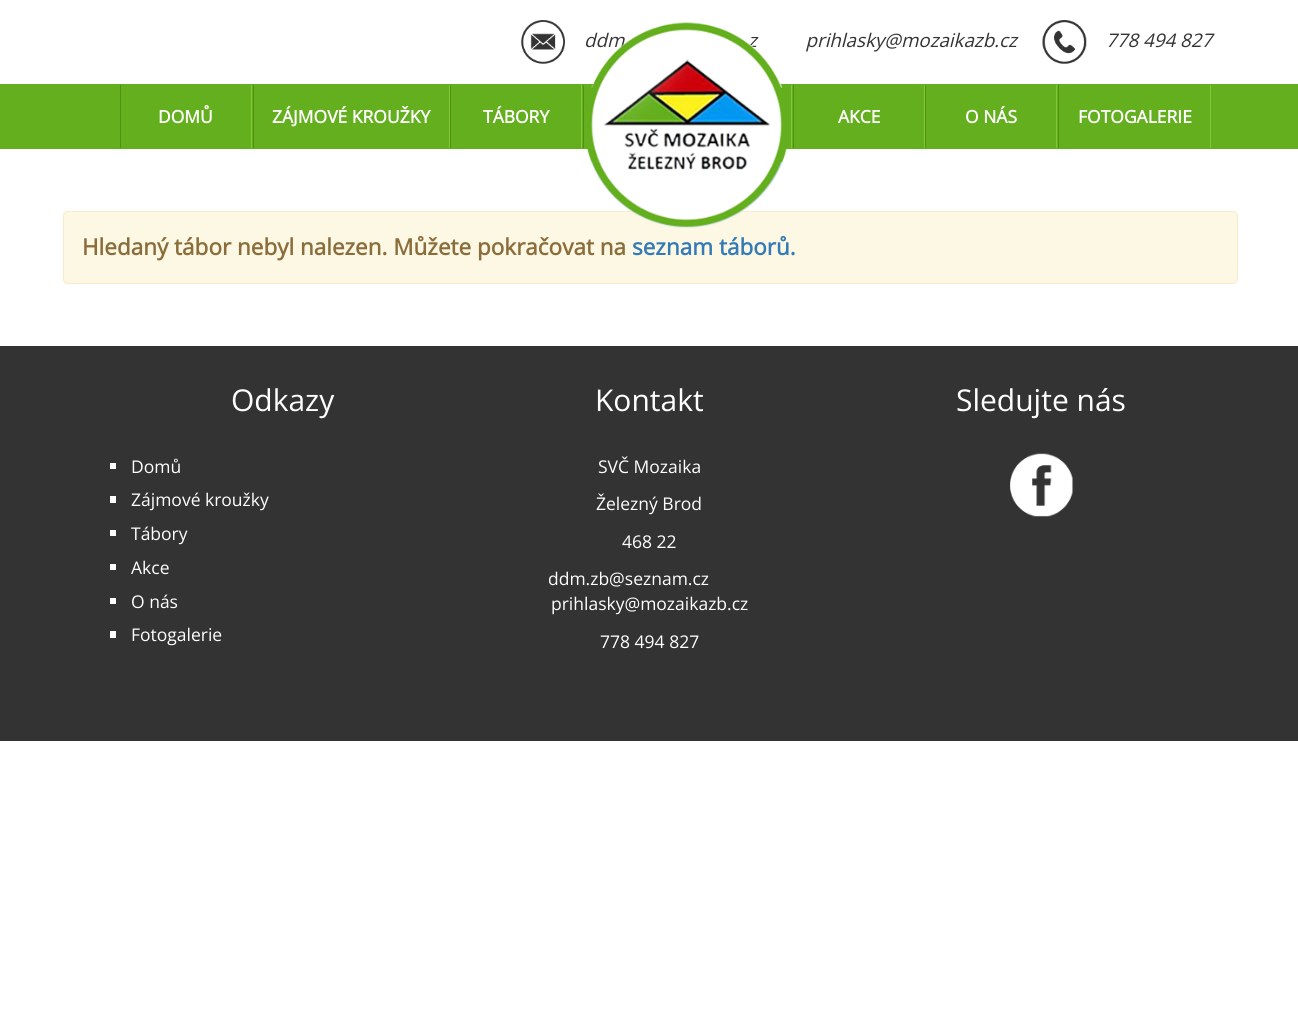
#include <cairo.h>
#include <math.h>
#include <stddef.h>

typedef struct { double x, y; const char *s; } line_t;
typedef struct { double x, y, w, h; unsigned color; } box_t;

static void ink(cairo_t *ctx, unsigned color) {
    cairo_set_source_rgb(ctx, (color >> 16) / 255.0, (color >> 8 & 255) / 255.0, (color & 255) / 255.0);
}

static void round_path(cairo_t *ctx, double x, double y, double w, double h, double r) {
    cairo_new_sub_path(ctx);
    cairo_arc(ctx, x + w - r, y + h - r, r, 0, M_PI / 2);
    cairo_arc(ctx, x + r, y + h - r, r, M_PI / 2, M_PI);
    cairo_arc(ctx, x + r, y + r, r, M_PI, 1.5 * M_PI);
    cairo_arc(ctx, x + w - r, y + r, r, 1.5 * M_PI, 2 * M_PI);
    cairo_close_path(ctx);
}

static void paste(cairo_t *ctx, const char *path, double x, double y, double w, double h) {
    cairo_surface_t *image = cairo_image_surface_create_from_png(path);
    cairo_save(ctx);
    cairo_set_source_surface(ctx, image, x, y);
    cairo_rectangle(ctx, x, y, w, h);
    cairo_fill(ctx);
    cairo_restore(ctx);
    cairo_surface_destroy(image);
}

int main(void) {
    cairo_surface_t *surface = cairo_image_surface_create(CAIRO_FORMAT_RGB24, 1298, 1030);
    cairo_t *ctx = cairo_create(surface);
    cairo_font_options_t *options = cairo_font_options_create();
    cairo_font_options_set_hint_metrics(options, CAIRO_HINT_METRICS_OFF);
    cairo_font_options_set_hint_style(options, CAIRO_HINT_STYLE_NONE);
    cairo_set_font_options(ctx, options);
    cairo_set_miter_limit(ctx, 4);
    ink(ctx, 0xFFFFFF);
    cairo_paint(ctx);
    paste(ctx, "media/1.png", 521, 20, 44, 44);
    cairo_select_font_face(ctx, "Open Sans", CAIRO_FONT_SLANT_ITALIC, CAIRO_FONT_WEIGHT_NORMAL);
    cairo_set_font_size(ctx, 18.75);
    ink(ctx, 0x333333);
    cairo_move_to(ctx, 584, 47);
    cairo_show_text(ctx, "ddm");
    cairo_move_to(ctx, 748, 47);
    cairo_show_text(ctx, "z          prihlasky@mozaikazb.cz");
    paste(ctx, "media/2.png", 1042, 20, 45, 44);
    cairo_move_to(ctx, 1106, 47);
    cairo_show_text(ctx, "778 494 827");
    {
        static const box_t items[] = {
            {0, 84, 1298, 65, 0x64AF1E},
            {251, 85, 1, 63, 0x7DCC33},
            {120, 85, 1, 63, 0x518E17},
        };
        for (size_t i = 0; i < sizeof items / sizeof *items; i++) {
            ink(ctx, items[i].color);
            cairo_rectangle(ctx, items[i].x, items[i].y, items[i].w, items[i].h);
            cairo_fill(ctx);
        }
    }
    cairo_select_font_face(ctx, "Open Sans", CAIRO_FONT_SLANT_NORMAL, CAIRO_FONT_WEIGHT_BOLD);
    cairo_set_font_size(ctx, 17.5);
    ink(ctx, 0xFFFFFF);
    cairo_move_to(ctx, 158, 123);
    cairo_show_text(ctx, "DOMŮ");
    ink(ctx, 0x7DCC33);
    cairo_rectangle(ctx, 449, 85, 1, 63);
    cairo_fill(ctx);
    ink(ctx, 0x518E17);
    cairo_rectangle(ctx, 253, 85, 1, 63);
    cairo_fill(ctx);
    ink(ctx, 0xFFFFFF);
    cairo_move_to(ctx, 272, 123);
    cairo_show_text(ctx, "ZÁJMOVÉ KROUŽKY");
    ink(ctx, 0x7DCC33);
    cairo_rectangle(ctx, 581, 85, 1, 63);
    cairo_fill(ctx);
    ink(ctx, 0x518E17);
    cairo_rectangle(ctx, 450, 85, 1, 63);
    cairo_fill(ctx);
    ink(ctx, 0xFFFFFF);
    cairo_move_to(ctx, 483, 123);
    cairo_show_text(ctx, "TÁBORY");
    ink(ctx, 0x7DCC33);
    cairo_rectangle(ctx, 791, 85, 1, 63);
    cairo_fill(ctx);
    ink(ctx, 0x518E17);
    cairo_rectangle(ctx, 583, 85, 1, 63);
    cairo_fill(ctx);
    ink(ctx, 0xFCF8E3);
    round_path(ctx, 63.5, 211.5, 1174, 72, 4.5);
    cairo_fill_preserve(ctx);
    ink(ctx, 0xFAEBCC);
    cairo_set_line_width(ctx, 1);
    cairo_stroke(ctx);
    paste(ctx, "media/3.png", 587, 22, 200, 206);
    ink(ctx, 0x7DCC33);
    cairo_rectangle(ctx, 924, 85, 1, 63);
    cairo_fill(ctx);
    ink(ctx, 0x518E17);
    cairo_rectangle(ctx, 793, 85, 1, 63);
    cairo_fill(ctx);
    ink(ctx, 0xFFFFFF);
    cairo_move_to(ctx, 838, 123);
    cairo_show_text(ctx, "AKCE");
    ink(ctx, 0x7DCC33);
    cairo_rectangle(ctx, 1056, 85, 1, 63);
    cairo_fill(ctx);
    ink(ctx, 0x518E17);
    cairo_rectangle(ctx, 925, 85, 1, 63);
    cairo_fill(ctx);
    ink(ctx, 0xFFFFFF);
    cairo_move_to(ctx, 965, 123);
    cairo_show_text(ctx, "O NÁS");
    ink(ctx, 0x7DCC33);
    cairo_rectangle(ctx, 1210, 85, 1, 63);
    cairo_fill(ctx);
    ink(ctx, 0x518E17);
    cairo_rectangle(ctx, 1058, 85, 1, 63);
    cairo_fill(ctx);
    ink(ctx, 0xFFFFFF);
    cairo_move_to(ctx, 1078, 123);
    cairo_show_text(ctx, "FOTOGALERIE");
    cairo_set_font_size(ctx, 22.5);
    ink(ctx, 0x8A6D3B);
    cairo_move_to(ctx, 82, 255);
    cairo_show_text(ctx, "Hledaný tábor nebyl nalezen. Můžete pokračovat na");
    ink(ctx, 0x337AB7);
    cairo_move_to(ctx, 632, 255);
    cairo_show_text(ctx, "seznam táborů.");
    ink(ctx, 0x333333);
    cairo_rectangle(ctx, 0, 346, 1298, 395);
    cairo_fill(ctx);
    cairo_select_font_face(ctx, "Open Sans", CAIRO_FONT_SLANT_NORMAL, CAIRO_FONT_WEIGHT_NORMAL);
    cairo_set_font_size(ctx, 30);
    ink(ctx, 0xFFFFFF);
    cairo_move_to(ctx, 231, 411);
    cairo_show_text(ctx, "Odkazy");
    cairo_rectangle(ctx, 110, 463, 6, 6);
    cairo_fill(ctx);
    cairo_set_font_size(ctx, 17.5);
    cairo_move_to(ctx, 131, 473);
    cairo_show_text(ctx, "Domů");
    cairo_rectangle(ctx, 110, 496, 6, 7);
    cairo_fill(ctx);
    cairo_move_to(ctx, 131, 506);
    cairo_show_text(ctx, "Zájmové kroužky");
    cairo_rectangle(ctx, 110, 530, 6, 6);
    cairo_fill(ctx);
    cairo_move_to(ctx, 131, 540);
    cairo_show_text(ctx, "Tábory");
    cairo_rectangle(ctx, 110, 564, 6, 6);
    cairo_fill(ctx);
    cairo_move_to(ctx, 131, 574);
    cairo_show_text(ctx, "Akce");
    cairo_rectangle(ctx, 110, 598, 6, 6);
    cairo_fill(ctx);
    cairo_move_to(ctx, 131, 608);
    cairo_show_text(ctx, "O nás");
    cairo_rectangle(ctx, 110, 631, 6, 7);
    cairo_fill(ctx);
    cairo_move_to(ctx, 131, 641);
    cairo_show_text(ctx, "Fotogalerie");
    cairo_set_font_size(ctx, 30);
    cairo_move_to(ctx, 595, 411);
    cairo_show_text(ctx, "Kontakt");
    cairo_set_font_size(ctx, 17.5);
    {
        static const line_t items[] = {
            {598, 473, "SVČ Mozaika"},
            {596, 510, "Železný Brod"},
            {622, 548, "468 22"},
            {548, 585, "ddm.zb@seznam.cz"},
            {551, 610, "prihlasky@mozaikazb.cz"},
            {600, 648, "778 494 827"},
        };
        for (size_t i = 0; i < sizeof items / sizeof *items; i++) {
            cairo_move_to(ctx, items[i].x, items[i].y);
            cairo_show_text(ctx, items[i].s);
        }
    }
    cairo_set_font_size(ctx, 30);
    cairo_move_to(ctx, 956, 411);
    cairo_show_text(ctx, "Sledujte nás");
    paste(ctx, "media/4.png", 1010, 453, 63, 64);
    cairo_surface_write_to_png(surface, "image.png");
    cairo_font_options_destroy(options);
    cairo_destroy(ctx);
    cairo_surface_destroy(surface);
    return 0;
}
